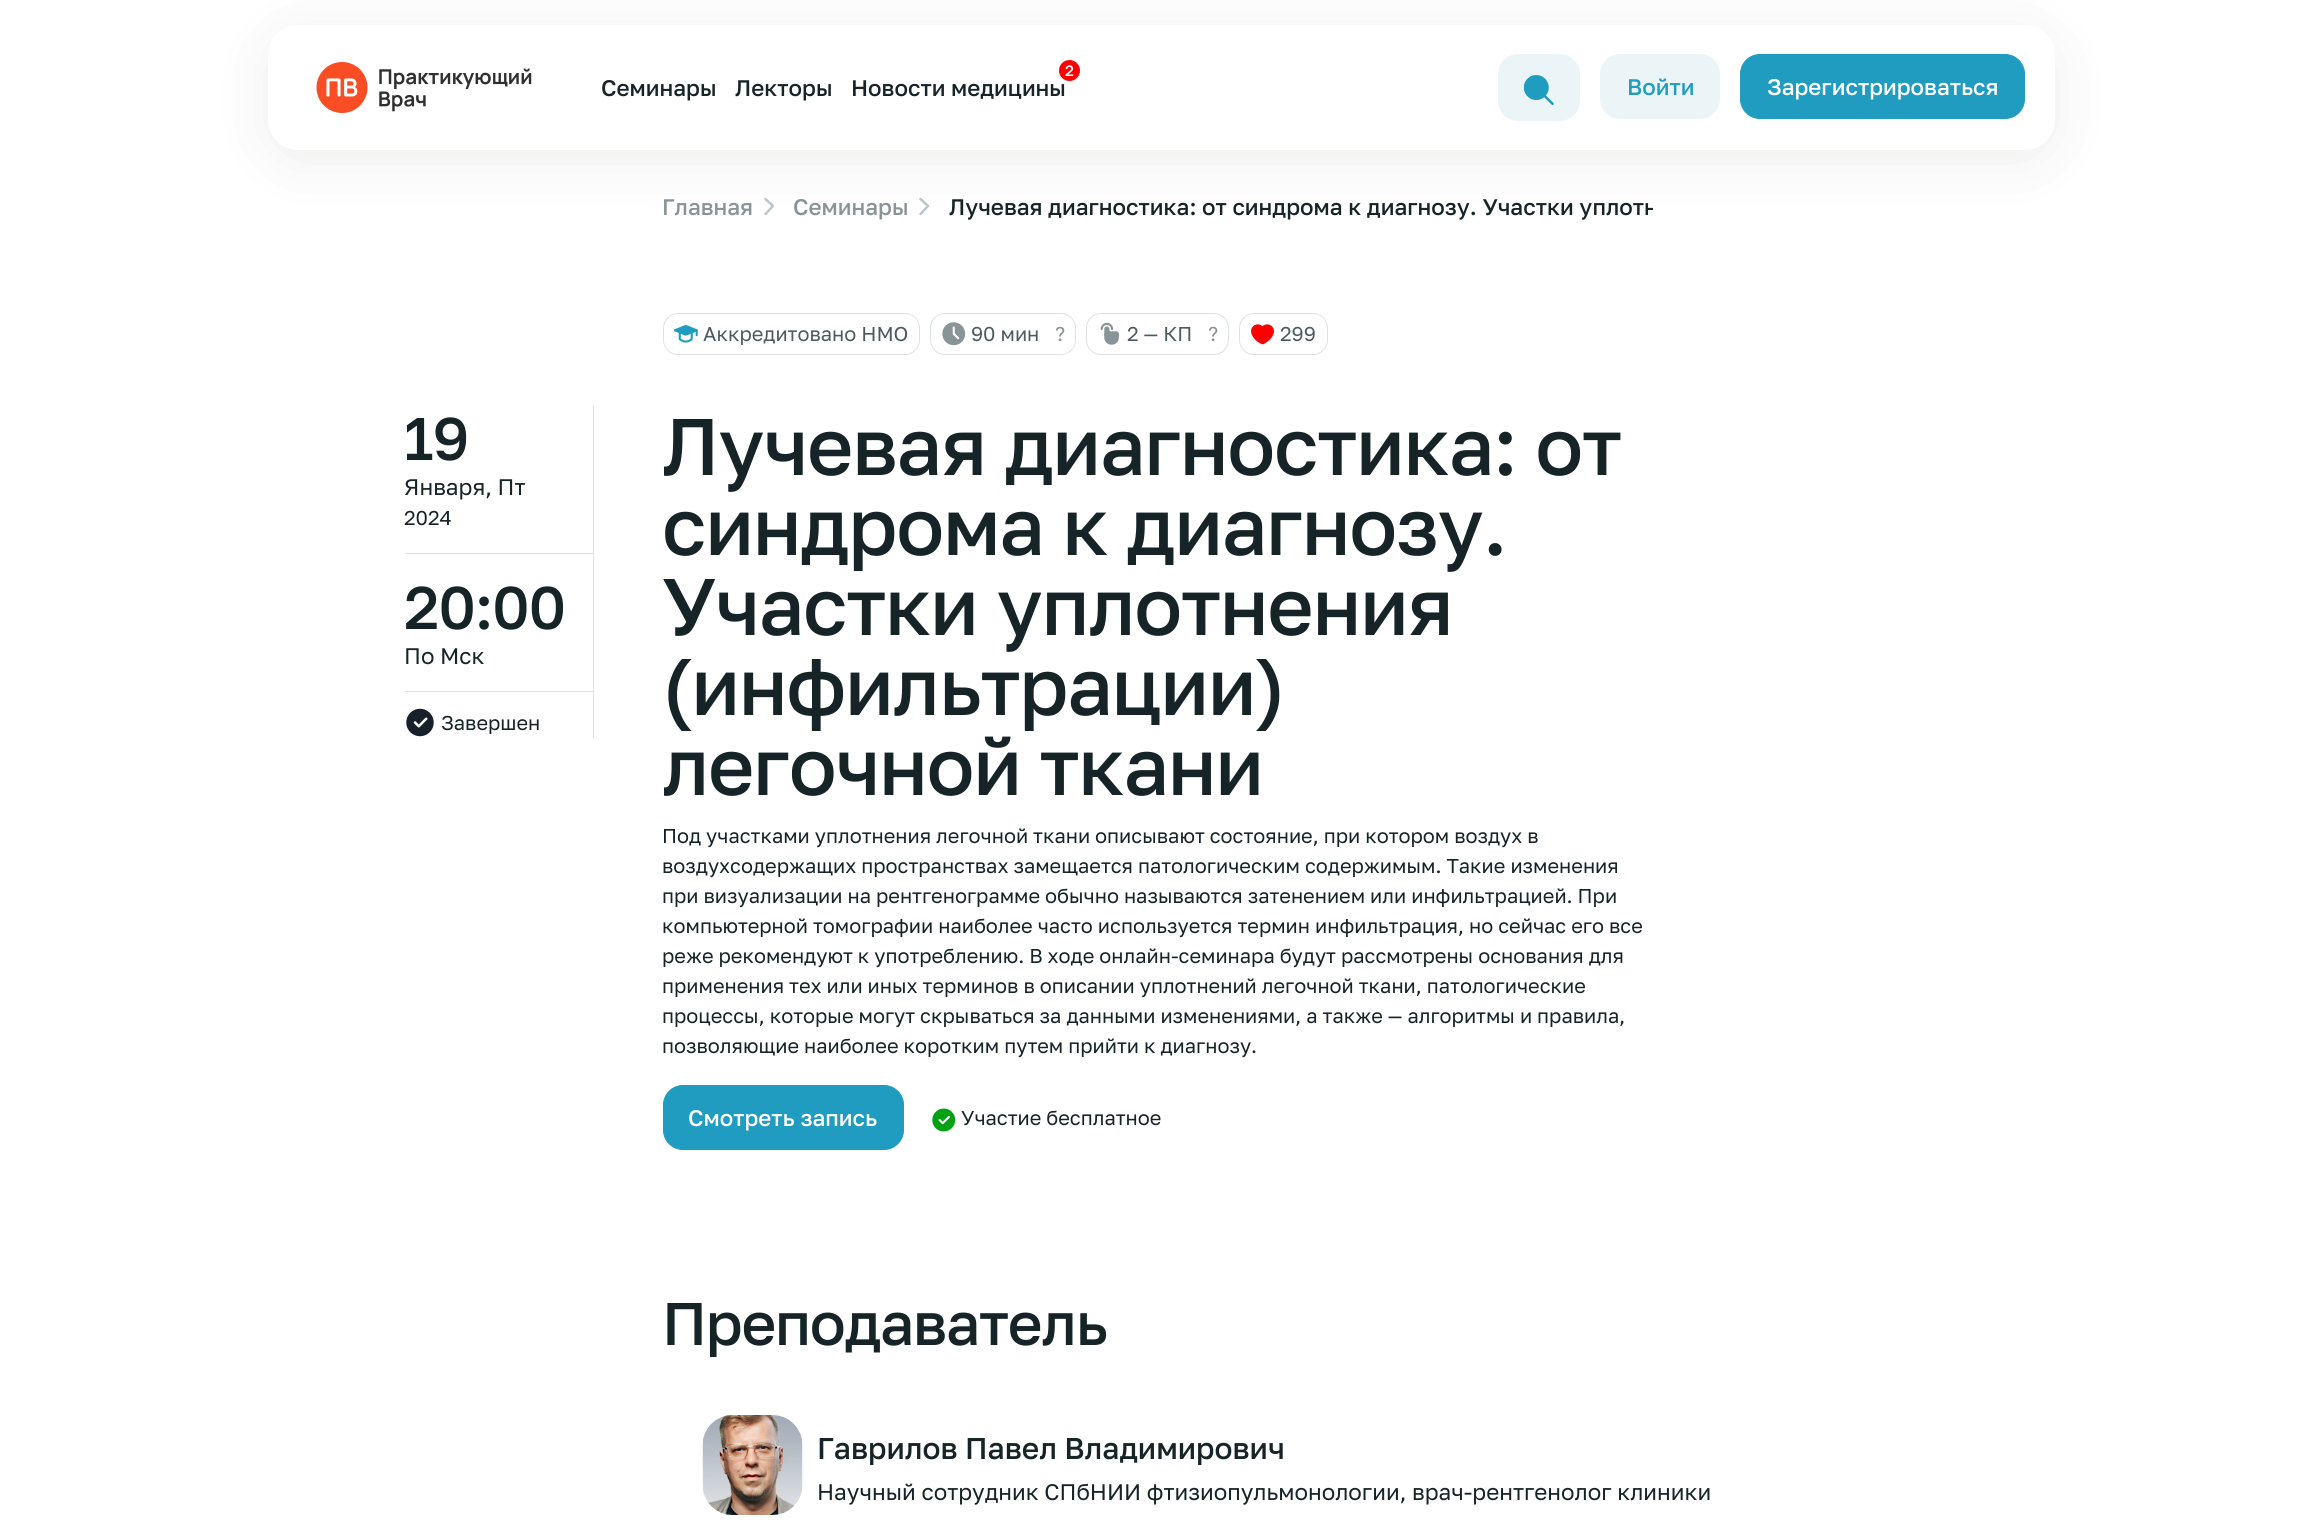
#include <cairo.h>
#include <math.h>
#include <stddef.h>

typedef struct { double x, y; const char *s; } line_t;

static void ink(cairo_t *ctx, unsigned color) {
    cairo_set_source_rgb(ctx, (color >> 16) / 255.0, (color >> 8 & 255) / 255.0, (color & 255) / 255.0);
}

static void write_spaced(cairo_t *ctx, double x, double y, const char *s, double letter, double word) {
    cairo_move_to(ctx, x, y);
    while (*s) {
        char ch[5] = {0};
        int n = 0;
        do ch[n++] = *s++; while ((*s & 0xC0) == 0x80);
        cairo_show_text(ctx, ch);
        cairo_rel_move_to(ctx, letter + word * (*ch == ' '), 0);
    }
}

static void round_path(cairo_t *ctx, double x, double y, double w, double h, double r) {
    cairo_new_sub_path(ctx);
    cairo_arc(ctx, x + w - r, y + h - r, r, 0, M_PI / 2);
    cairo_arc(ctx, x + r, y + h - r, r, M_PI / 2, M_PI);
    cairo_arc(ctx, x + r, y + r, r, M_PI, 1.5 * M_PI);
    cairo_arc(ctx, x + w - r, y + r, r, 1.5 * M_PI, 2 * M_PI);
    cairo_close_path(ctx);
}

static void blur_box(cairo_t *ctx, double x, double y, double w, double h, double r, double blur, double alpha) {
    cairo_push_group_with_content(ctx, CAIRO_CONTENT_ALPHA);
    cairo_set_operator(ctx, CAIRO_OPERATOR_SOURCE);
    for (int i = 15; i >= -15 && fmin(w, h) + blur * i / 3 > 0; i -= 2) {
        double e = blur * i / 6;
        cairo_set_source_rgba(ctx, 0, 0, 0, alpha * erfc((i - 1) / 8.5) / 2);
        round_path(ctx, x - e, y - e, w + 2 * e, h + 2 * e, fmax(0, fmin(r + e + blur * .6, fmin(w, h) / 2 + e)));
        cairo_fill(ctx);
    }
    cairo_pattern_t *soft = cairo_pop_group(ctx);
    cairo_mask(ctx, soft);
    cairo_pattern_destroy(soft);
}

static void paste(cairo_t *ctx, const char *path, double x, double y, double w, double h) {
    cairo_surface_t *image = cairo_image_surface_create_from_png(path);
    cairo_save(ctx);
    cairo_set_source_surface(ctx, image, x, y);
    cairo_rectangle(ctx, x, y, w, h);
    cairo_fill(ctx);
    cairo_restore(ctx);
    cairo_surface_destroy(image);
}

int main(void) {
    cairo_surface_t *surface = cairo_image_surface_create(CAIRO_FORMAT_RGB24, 2321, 1524);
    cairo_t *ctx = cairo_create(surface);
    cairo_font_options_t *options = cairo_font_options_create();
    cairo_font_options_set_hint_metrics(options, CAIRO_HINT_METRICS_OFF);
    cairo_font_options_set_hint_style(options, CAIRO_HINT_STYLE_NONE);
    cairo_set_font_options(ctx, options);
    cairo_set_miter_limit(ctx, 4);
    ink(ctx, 0xFFFFFF);
    cairo_paint(ctx);
    cairo_new_path(ctx);
    cairo_move_to(ctx, 765.5, 199);
    cairo_line_to(ctx, 773, 206);
    cairo_line_to(ctx, 765.5, 214);
    ink(ctx, 0xBCC7CB);
    cairo_set_line_width(ctx, 2.5);
    cairo_set_line_cap(ctx, CAIRO_LINE_CAP_ROUND);
    cairo_set_line_join(ctx, CAIRO_LINE_JOIN_ROUND);
    cairo_stroke(ctx);
    cairo_new_path(ctx);
    cairo_move_to(ctx, 920.5, 199);
    cairo_line_to(ctx, 928, 206);
    cairo_line_to(ctx, 920.5, 214);
    cairo_stroke(ctx);
    ink(ctx, 0x23201E);
    blur_box(ctx, 268, 35, 1787, 125, 30, 30, 0.08);
    ink(ctx, 0xFFFFFF);
    round_path(ctx, 268, 25, 1787, 125, 30);
    cairo_fill(ctx);
    paste(ctx, "media/1.png", 316, 62, 216, 51);
    cairo_select_font_face(ctx, "Golos Text Medium", CAIRO_FONT_SLANT_NORMAL, CAIRO_FONT_WEIGHT_NORMAL);
    cairo_set_font_size(ctx, 22.5);
    ink(ctx, 0x162427);
    {
        static const line_t items[] = {
            {601, 96, "Семинары"},
            {735, 96, "Лекторы"},
            {851, 96, "Новости медицины"},
        };
        for (size_t i = 0; i < sizeof items / sizeof *items; i++) {
            cairo_move_to(ctx, items[i].x, items[i].y);
            cairo_show_text(ctx, items[i].s);
        }
    }
    ink(ctx, 0xFF0000);
    cairo_new_path(ctx);
    cairo_arc(ctx, 1069.5, 70.5, 10.5, 0, 2 * M_PI);
    cairo_fill(ctx);
    cairo_set_font_size(ctx, 15);
    ink(ctx, 0xFFFFFF);
    cairo_move_to(ctx, 1065, 76);
    cairo_show_text(ctx, "2");
    ink(ctx, 0xEBF5F8);
    round_path(ctx, 1498.5, 54.5, 81, 66, 19.5);
    cairo_fill_preserve(ctx);
    cairo_set_line_width(ctx, 1);
    cairo_set_line_cap(ctx, CAIRO_LINE_CAP_BUTT);
    cairo_set_line_join(ctx, CAIRO_LINE_JOIN_MITER);
    cairo_stroke(ctx);
    paste(ctx, "media/2.png", 1524, 75, 30, 30);
    round_path(ctx, 1600.5, 54.5, 119, 64, 19.5);
    cairo_fill_preserve(ctx);
    cairo_stroke(ctx);
    cairo_set_font_size(ctx, 22.5);
    ink(ctx, 0x1F9CBF);
    cairo_move_to(ctx, 1627, 95);
    cairo_show_text(ctx, "Войти");
    round_path(ctx, 1740.5, 54.5, 284, 64, 19.5);
    cairo_fill_preserve(ctx);
    cairo_stroke(ctx);
    ink(ctx, 0xFFFFFF);
    cairo_move_to(ctx, 1767, 95);
    cairo_show_text(ctx, "Зарегистрироваться");
    ink(ctx, 0x899498);
    cairo_move_to(ctx, 662, 215);
    cairo_show_text(ctx, "Главная");
    cairo_move_to(ctx, 793, 215);
    cairo_show_text(ctx, "Семинары");
    cairo_save(ctx);
    cairo_rectangle(ctx, 663, 190, 990, 73);
    cairo_clip(ctx);
    ink(ctx, 0x162427);
    cairo_move_to(ctx, 949, 215);
    cairo_show_text(ctx, "Лучевая диагностика: от синдрома к диагнозу. Участки уплотн");
    cairo_restore(ctx);
    round_path(ctx, 663.5, 313.5, 256, 41, 14.5);
    ink(ctx, 0xDEE2E3);
    cairo_stroke(ctx);
    paste(ctx, "media/3.png", 674, 324, 24, 19);
    cairo_select_font_face(ctx, "Golos Text", CAIRO_FONT_SLANT_NORMAL, CAIRO_FONT_WEIGHT_NORMAL);
    cairo_set_font_size(ctx, 20);
    ink(ctx, 0x4B5B60);
    cairo_move_to(ctx, 703, 341);
    cairo_show_text(ctx, "Аккредитовано НМО");
    round_path(ctx, 930.5, 313.5, 145, 41, 14.5);
    ink(ctx, 0xDEE2E3);
    cairo_stroke(ctx);
    paste(ctx, "media/4.png", 942, 322, 24, 24);
    ink(ctx, 0x4B5B60);
    cairo_move_to(ctx, 971, 341);
    cairo_show_text(ctx, "90 мин");
    ink(ctx, 0x899498);
    cairo_move_to(ctx, 1055, 341);
    cairo_show_text(ctx, "?");
    round_path(ctx, 1086.5, 313.5, 142, 41, 14.5);
    ink(ctx, 0xDEE2E3);
    cairo_stroke(ctx);
    paste(ctx, "media/5.png", 1100, 322, 19, 23);
    ink(ctx, 0x4B5B60);
    cairo_move_to(ctx, 1127, 341);
    cairo_show_text(ctx, "2 — КП");
    ink(ctx, 0x899498);
    cairo_move_to(ctx, 1208, 341);
    cairo_show_text(ctx, "?");
    round_path(ctx, 1239.5, 313.5, 88, 41, 14.5);
    ink(ctx, 0xDEE2E3);
    cairo_stroke(ctx);
    paste(ctx, "media/6.png", 1251, 324, 23, 21);
    ink(ctx, 0x4B5B60);
    cairo_move_to(ctx, 1280, 341);
    cairo_show_text(ctx, "299");
    ink(ctx, 0xDEE2E3);
    cairo_rectangle(ctx, 593, 405, 1, 333);
    cairo_fill(ctx);
    cairo_rectangle(ctx, 405, 553, 188, 1);
    cairo_fill(ctx);
    cairo_select_font_face(ctx, "Golos Text Medium", CAIRO_FONT_SLANT_NORMAL, CAIRO_FONT_WEIGHT_NORMAL);
    cairo_set_font_size(ctx, 60);
    ink(ctx, 0x162427);
    write_spaced(ctx, 404, 460, "19", -1.25, 0);
    cairo_select_font_face(ctx, "Golos Text", CAIRO_FONT_SLANT_NORMAL, CAIRO_FONT_WEIGHT_NORMAL);
    cairo_set_font_size(ctx, 22.5);
    cairo_move_to(ctx, 404, 495);
    cairo_show_text(ctx, "Января, Пт");
    cairo_set_font_size(ctx, 20);
    cairo_move_to(ctx, 404, 525);
    cairo_show_text(ctx, "2024");
    ink(ctx, 0xDEE2E3);
    cairo_rectangle(ctx, 405, 691, 188, 1);
    cairo_fill(ctx);
    cairo_select_font_face(ctx, "Golos Text Medium", CAIRO_FONT_SLANT_NORMAL, CAIRO_FONT_WEIGHT_NORMAL);
    cairo_set_font_size(ctx, 60);
    ink(ctx, 0x162427);
    write_spaced(ctx, 404, 629, "20:00", -1.25, 0);
    cairo_select_font_face(ctx, "Golos Text", CAIRO_FONT_SLANT_NORMAL, CAIRO_FONT_WEIGHT_NORMAL);
    cairo_set_font_size(ctx, 22.5);
    cairo_move_to(ctx, 404, 664);
    cairo_show_text(ctx, "По Мск");
    paste(ctx, "media/7.png", 406, 708, 28, 29);
    cairo_set_font_size(ctx, 20);
    cairo_move_to(ctx, 441, 730);
    cairo_show_text(ctx, "Завершен");
    cairo_select_font_face(ctx, "Golos Text Medium", CAIRO_FONT_SLANT_NORMAL, CAIRO_FONT_WEIGHT_NORMAL);
    cairo_set_font_size(ctx, 80);
    {
        static const line_t items[] = {
            {662, 475, "Лучевая диагностика: от"},
            {662, 555, "синдрома к диагнозу."},
            {662, 635, "Участки уплотнения"},
            {662, 715, "(инфильтрации)"},
            {662, 795, "легочной ткани"},
        };
        for (size_t i = 0; i < sizeof items / sizeof *items; i++) {
            write_spaced(ctx, items[i].x, items[i].y, items[i].s, -1.25, 0);
        }
    }
    cairo_select_font_face(ctx, "Golos Text", CAIRO_FONT_SLANT_NORMAL, CAIRO_FONT_WEIGHT_NORMAL);
    cairo_set_font_size(ctx, 20);
    {
        static const line_t items[] = {
            {662, 843, "Под участками уплотнения легочной ткани описывают состояние, при котором воздух в"},
            {662, 873, "воздухсодержащих пространствах замещается патологическим содержимым. Такие изменения"},
            {662, 903, "при визуализации на рентгенограмме обычно называются затенением или инфильтрацией. При"},
            {662, 933, "компьютерной томографии наиболее часто используется термин инфильтрация, но сейчас его все"},
            {662, 963, "реже рекомендуют к употреблению. В ходе онлайн-семинара будут рассмотрены основания для"},
            {662, 993, "применения тех или иных терминов в описании уплотнений легочной ткани, патологические"},
            {662, 1023, "процессы, которые могут скрываться за данными изменениями, а также — алгоритмы и правила,"},
            {662, 1053, "позволяющие наиболее коротким путем прийти к диагнозу."},
        };
        for (size_t i = 0; i < sizeof items / sizeof *items; i++) {
            cairo_move_to(ctx, items[i].x, items[i].y);
            cairo_show_text(ctx, items[i].s);
        }
    }
    ink(ctx, 0x1F9CBF);
    round_path(ctx, 663.5, 1085.5, 240, 64, 19.5);
    cairo_fill_preserve(ctx);
    cairo_stroke(ctx);
    cairo_select_font_face(ctx, "Golos Text Medium", CAIRO_FONT_SLANT_NORMAL, CAIRO_FONT_WEIGHT_NORMAL);
    cairo_set_font_size(ctx, 22.5);
    ink(ctx, 0xFFFFFF);
    cairo_move_to(ctx, 688, 1126);
    cairo_show_text(ctx, "Смотреть запись");
    paste(ctx, "media/8.png", 932, 1108, 24, 24);
    cairo_select_font_face(ctx, "Golos Text", CAIRO_FONT_SLANT_NORMAL, CAIRO_FONT_WEIGHT_NORMAL);
    cairo_set_font_size(ctx, 20);
    ink(ctx, 0x162427);
    cairo_move_to(ctx, 961, 1125);
    cairo_show_text(ctx, "Участие бесплатное");
    cairo_select_font_face(ctx, "Golos Text Medium", CAIRO_FONT_SLANT_NORMAL, CAIRO_FONT_WEIGHT_NORMAL);
    cairo_set_font_size(ctx, 60);
    write_spaced(ctx, 662, 1345, "Преподаватель", -1.25, 0);
    paste(ctx, "media/9.png", 702, 1415, 101, 100);
    cairo_set_font_size(ctx, 30);
    cairo_move_to(ctx, 817, 1459);
    cairo_show_text(ctx, "Гаврилов Павел Владимирович");
    cairo_select_font_face(ctx, "Golos Text", CAIRO_FONT_SLANT_NORMAL, CAIRO_FONT_WEIGHT_NORMAL);
    cairo_set_font_size(ctx, 22.5);
    cairo_move_to(ctx, 817, 1500);
    cairo_show_text(ctx, "Научный сотрудник СПбНИИ фтизиопульмонологии, врач-рентгенолог клиники");
    cairo_surface_write_to_png(surface, "image.png");
    cairo_font_options_destroy(options);
    cairo_destroy(ctx);
    cairo_surface_destroy(surface);
    return 0;
}
